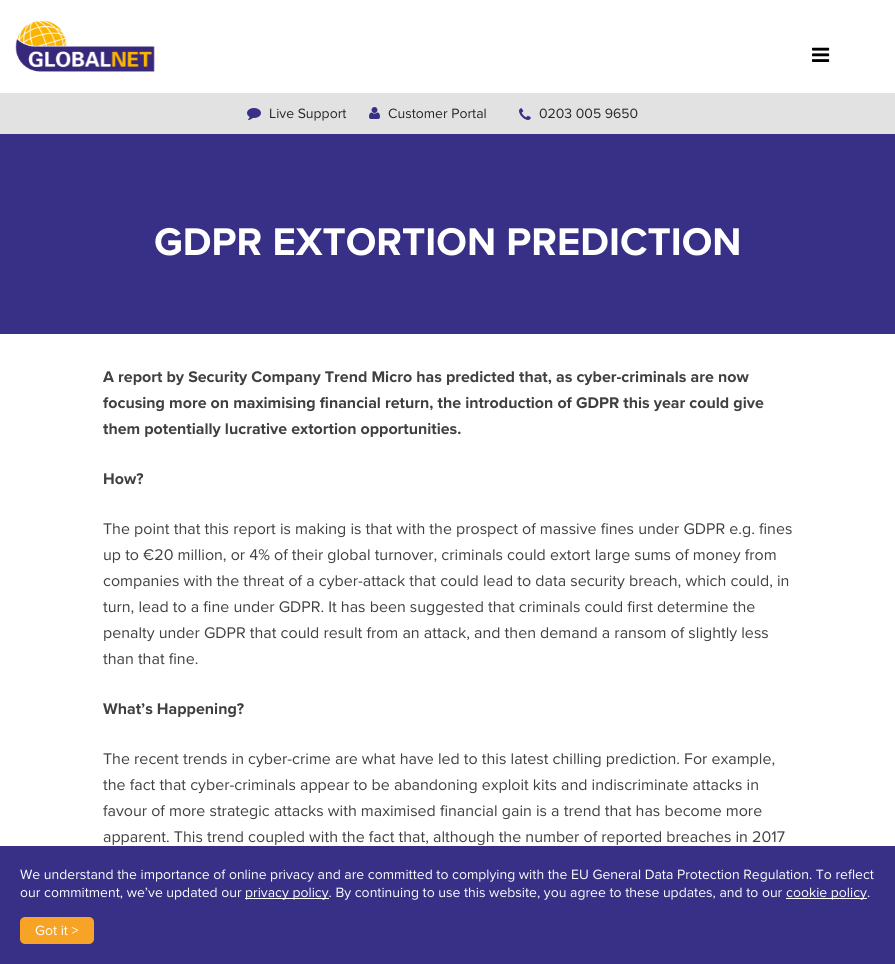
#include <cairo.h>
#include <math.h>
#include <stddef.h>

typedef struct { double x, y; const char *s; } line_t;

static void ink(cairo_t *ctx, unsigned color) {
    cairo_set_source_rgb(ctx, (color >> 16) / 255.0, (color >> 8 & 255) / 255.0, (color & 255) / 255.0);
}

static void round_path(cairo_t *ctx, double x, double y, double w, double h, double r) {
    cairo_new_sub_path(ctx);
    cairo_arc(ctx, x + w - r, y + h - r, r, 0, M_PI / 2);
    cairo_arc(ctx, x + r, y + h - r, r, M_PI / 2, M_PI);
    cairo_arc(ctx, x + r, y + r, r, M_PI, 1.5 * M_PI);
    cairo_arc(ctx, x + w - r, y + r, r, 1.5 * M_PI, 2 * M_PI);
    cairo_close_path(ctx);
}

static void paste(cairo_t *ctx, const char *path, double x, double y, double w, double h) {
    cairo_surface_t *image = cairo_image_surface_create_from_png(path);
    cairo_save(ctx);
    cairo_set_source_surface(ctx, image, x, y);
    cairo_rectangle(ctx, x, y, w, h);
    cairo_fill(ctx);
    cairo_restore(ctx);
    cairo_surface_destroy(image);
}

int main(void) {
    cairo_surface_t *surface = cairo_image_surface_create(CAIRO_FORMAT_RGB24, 895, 964);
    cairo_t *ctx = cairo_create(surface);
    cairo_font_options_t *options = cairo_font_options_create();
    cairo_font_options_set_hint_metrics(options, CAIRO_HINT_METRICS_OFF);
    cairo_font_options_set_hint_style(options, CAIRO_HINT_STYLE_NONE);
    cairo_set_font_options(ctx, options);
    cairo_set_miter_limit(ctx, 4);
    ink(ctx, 0xFFFFFF);
    cairo_paint(ctx);
    paste(ctx, "media/1.png", 15, 20, 140, 52);
    paste(ctx, "media/2.png", 812, 47, 18, 15);
    ink(ctx, 0xE2E2E2);
    cairo_rectangle(ctx, 0, 93, 895, 41);
    cairo_fill(ctx);
    paste(ctx, "media/3.png", 247, 108, 14, 12);
    cairo_select_font_face(ctx, "Proxima Nova", CAIRO_FONT_SLANT_NORMAL, CAIRO_FONT_WEIGHT_NORMAL);
    cairo_set_font_size(ctx, 14);
    ink(ctx, 0x292724);
    cairo_move_to(ctx, 269, 118);
    cairo_show_text(ctx, "Live Support");
    paste(ctx, "media/4.png", 369, 107, 11, 12);
    cairo_move_to(ctx, 388, 118);
    cairo_show_text(ctx, "Customer Portal");
    paste(ctx, "media/5.png", 519, 108, 12, 12);
    cairo_move_to(ctx, 539, 118);
    cairo_show_text(ctx, "0203 005 9650");
    ink(ctx, 0x373086);
    cairo_rectangle(ctx, 0, 134, 895, 200);
    cairo_fill(ctx);
    cairo_select_font_face(ctx, "Proxima Nova", CAIRO_FONT_SLANT_NORMAL, CAIRO_FONT_WEIGHT_BOLD);
    cairo_set_font_size(ctx, 40);
    ink(ctx, 0xFFFFFF);
    cairo_move_to(ctx, 154, 255);
    cairo_show_text(ctx, "GDPR EXTORTION PREDICTION");
    cairo_set_font_size(ctx, 16);
    ink(ctx, 0x404040);
    {
        static const line_t items[] = {
            {103, 382, "A report by Security Company Trend Micro has predicted that, as cyber-criminals are now"},
            {103, 408, "focusing more on maximising financial return, the introduction of GDPR this year could give"},
            {103, 434, "them potentially lucrative extortion opportunities."},
            {103, 484, "How?"},
        };
        for (size_t i = 0; i < sizeof items / sizeof *items; i++) {
            cairo_move_to(ctx, items[i].x, items[i].y);
            cairo_show_text(ctx, items[i].s);
        }
    }
    cairo_select_font_face(ctx, "Proxima Nova", CAIRO_FONT_SLANT_NORMAL, CAIRO_FONT_WEIGHT_NORMAL);
    {
        static const line_t items[] = {
            {103, 534, "The point that this report is making is that with the prospect of massive fines under GDPR e.g. fines"},
            {103, 560, "up to €20 million, or 4% of their global turnover, criminals could extort large sums of money from"},
            {103, 586, "companies with the threat of a cyber-attack that could lead to data security breach, which could, in"},
            {103, 612, "turn, lead to a fine under GDPR. It has been suggested that criminals could first determine the"},
            {103, 638, "penalty under GDPR that could result from an attack, and then demand a ransom of slightly less"},
            {103, 664, "than that fine."},
        };
        for (size_t i = 0; i < sizeof items / sizeof *items; i++) {
            cairo_move_to(ctx, items[i].x, items[i].y);
            cairo_show_text(ctx, items[i].s);
        }
    }
    cairo_select_font_face(ctx, "Proxima Nova", CAIRO_FONT_SLANT_NORMAL, CAIRO_FONT_WEIGHT_BOLD);
    cairo_move_to(ctx, 103, 714);
    cairo_show_text(ctx, "What’s Happening?");
    cairo_select_font_face(ctx, "Proxima Nova", CAIRO_FONT_SLANT_NORMAL, CAIRO_FONT_WEIGHT_NORMAL);
    {
        static const line_t items[] = {
            {103, 764, "The recent trends in cyber-crime are what have led to this latest chilling prediction. For example,"},
            {103, 790, "the fact that cyber-criminals appear to be abandoning exploit kits and indiscriminate attacks in"},
            {103, 816, "favour of more strategic attacks with maximised financial gain is a trend that has become more"},
            {103, 842, "apparent. This trend coupled with the fact that, although the number of reported breaches in 2017"},
        };
        for (size_t i = 0; i < sizeof items / sizeof *items; i++) {
            cairo_move_to(ctx, items[i].x, items[i].y);
            cairo_show_text(ctx, items[i].s);
        }
    }
    ink(ctx, 0x373086);
    cairo_rectangle(ctx, 0, 846, 895, 118);
    cairo_fill(ctx);
    cairo_set_font_size(ctx, 14);
    ink(ctx, 0xFFFFFF);
    cairo_move_to(ctx, 20, 879);
    cairo_show_text(ctx, "We understand the importance of online privacy and are committed to complying with the EU General Data Protection Regulation. To reflect");
    cairo_move_to(ctx, 20, 897);
    cairo_show_text(ctx, "our commitment, we’ve updated our");
    cairo_rectangle(ctx, 245, 898, 84, 1);
    cairo_fill(ctx);
    cairo_move_to(ctx, 245, 897);
    cairo_show_text(ctx, "privacy policy. By continuing to use this website, you agree to these updates, and to our");
    cairo_rectangle(ctx, 786, 898, 81, 1);
    cairo_fill(ctx);
    cairo_move_to(ctx, 786, 897);
    cairo_show_text(ctx, "cookie policy.");
    ink(ctx, 0xF6A326);
    round_path(ctx, 20, 917, 74, 27, 5);
    cairo_fill(ctx);
    ink(ctx, 0xFFFFFF);
    cairo_move_to(ctx, 35, 935);
    cairo_show_text(ctx, "Got it >");
    cairo_surface_write_to_png(surface, "image.png");
    cairo_font_options_destroy(options);
    cairo_destroy(ctx);
    cairo_surface_destroy(surface);
    return 0;
}
